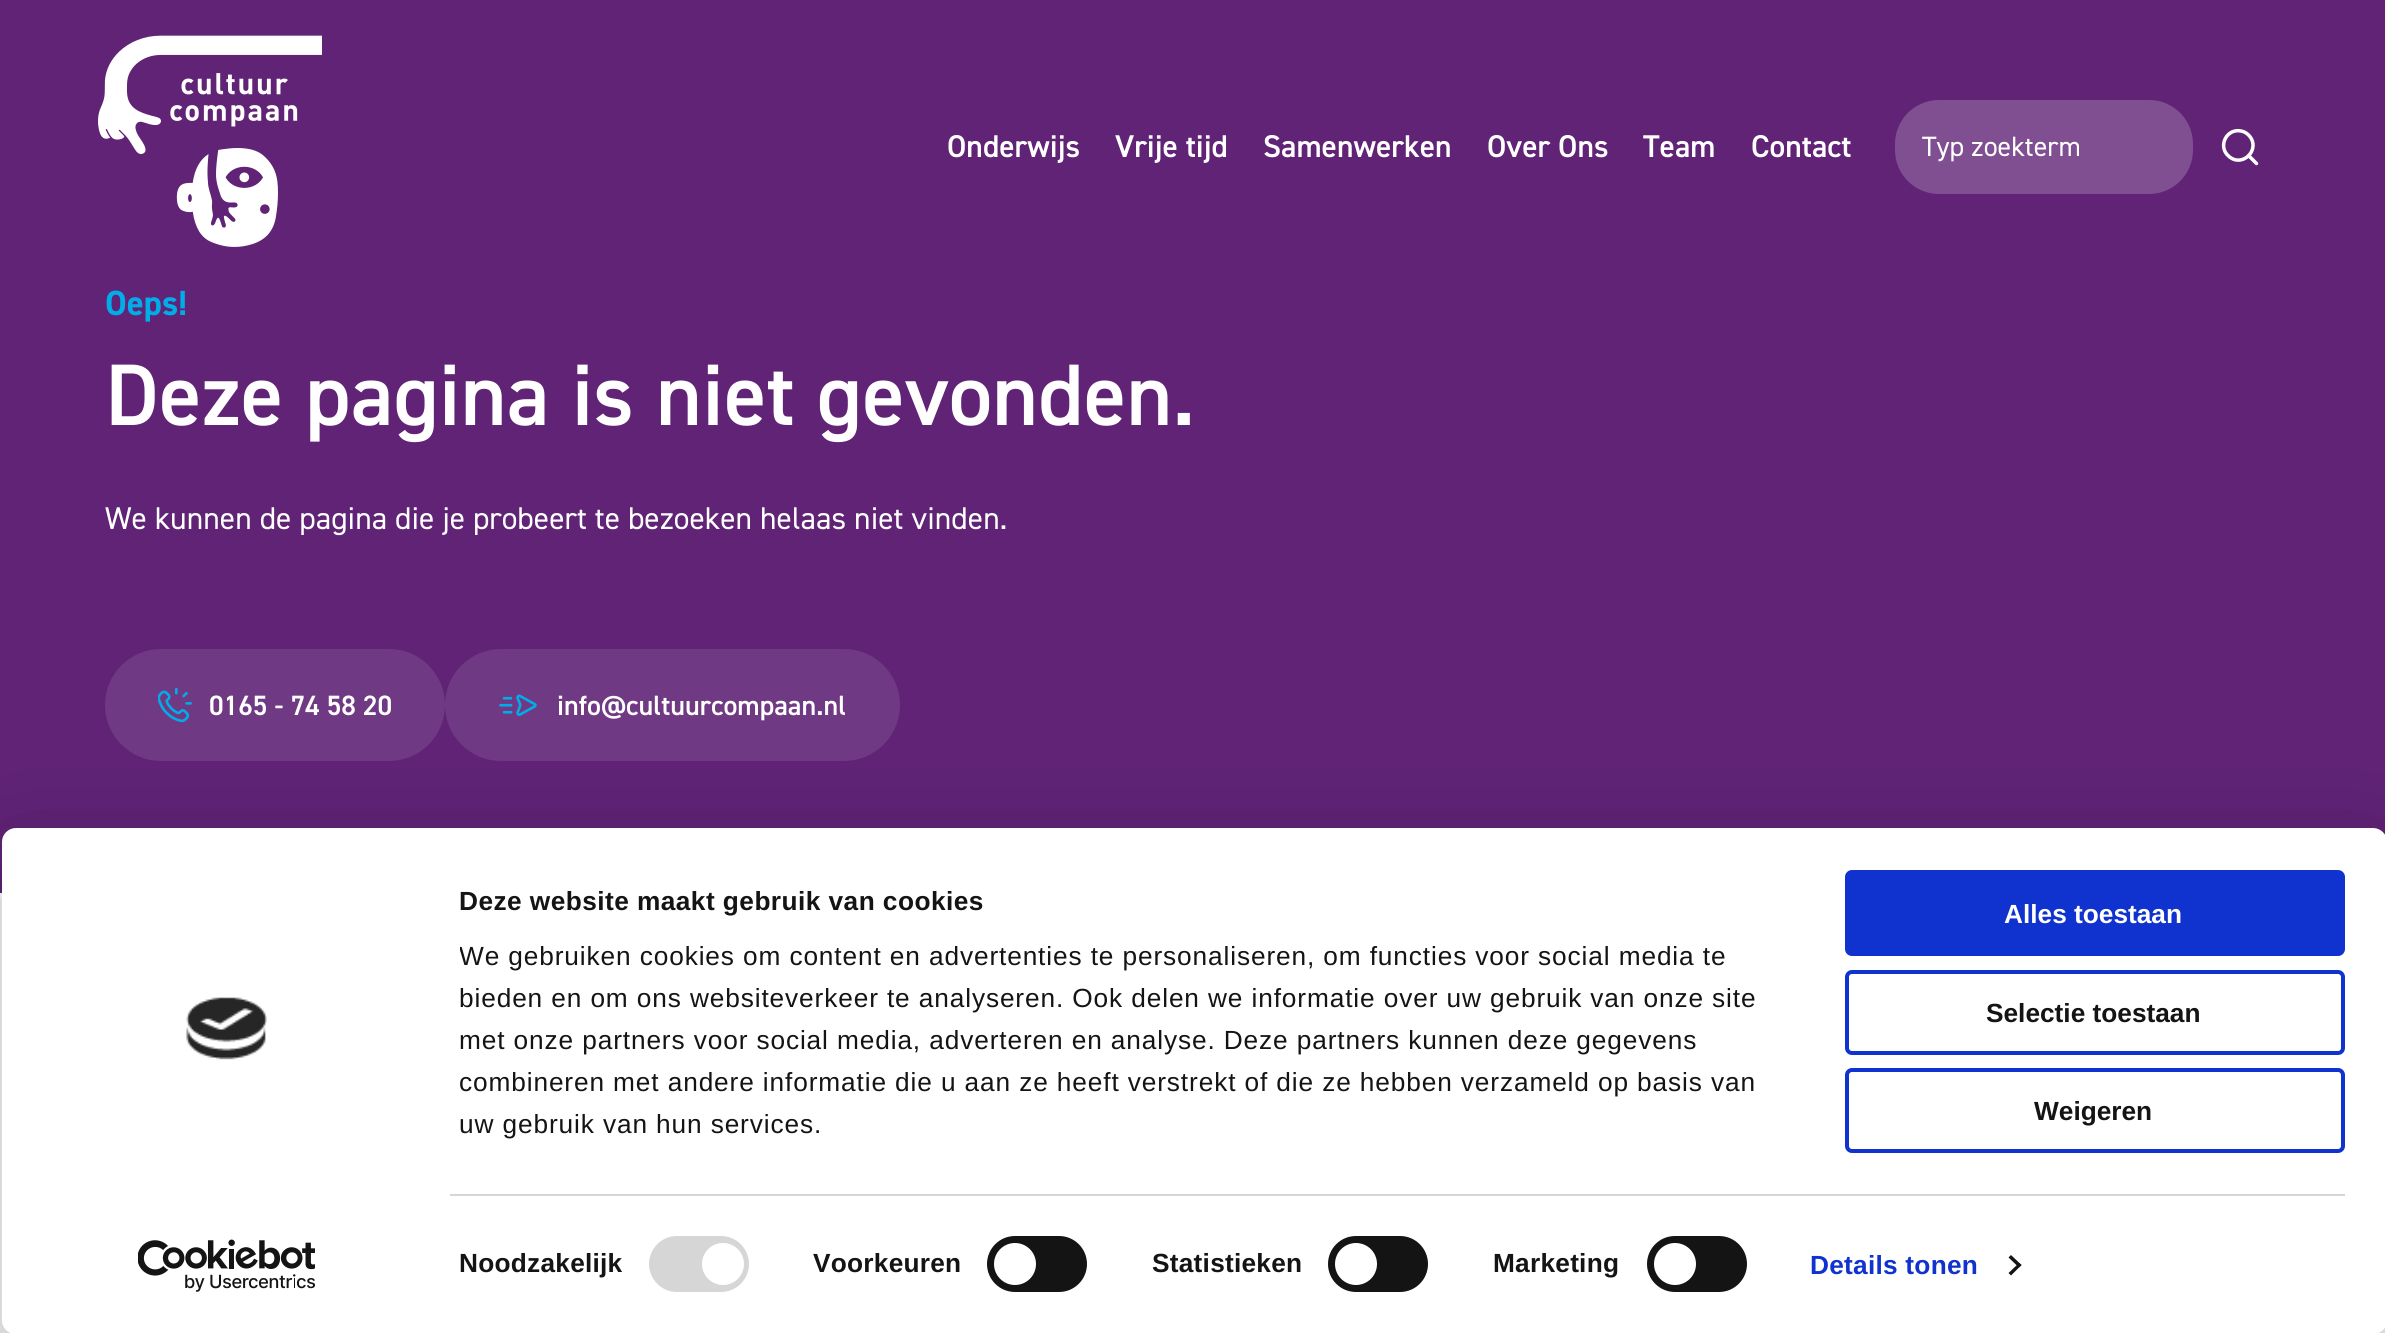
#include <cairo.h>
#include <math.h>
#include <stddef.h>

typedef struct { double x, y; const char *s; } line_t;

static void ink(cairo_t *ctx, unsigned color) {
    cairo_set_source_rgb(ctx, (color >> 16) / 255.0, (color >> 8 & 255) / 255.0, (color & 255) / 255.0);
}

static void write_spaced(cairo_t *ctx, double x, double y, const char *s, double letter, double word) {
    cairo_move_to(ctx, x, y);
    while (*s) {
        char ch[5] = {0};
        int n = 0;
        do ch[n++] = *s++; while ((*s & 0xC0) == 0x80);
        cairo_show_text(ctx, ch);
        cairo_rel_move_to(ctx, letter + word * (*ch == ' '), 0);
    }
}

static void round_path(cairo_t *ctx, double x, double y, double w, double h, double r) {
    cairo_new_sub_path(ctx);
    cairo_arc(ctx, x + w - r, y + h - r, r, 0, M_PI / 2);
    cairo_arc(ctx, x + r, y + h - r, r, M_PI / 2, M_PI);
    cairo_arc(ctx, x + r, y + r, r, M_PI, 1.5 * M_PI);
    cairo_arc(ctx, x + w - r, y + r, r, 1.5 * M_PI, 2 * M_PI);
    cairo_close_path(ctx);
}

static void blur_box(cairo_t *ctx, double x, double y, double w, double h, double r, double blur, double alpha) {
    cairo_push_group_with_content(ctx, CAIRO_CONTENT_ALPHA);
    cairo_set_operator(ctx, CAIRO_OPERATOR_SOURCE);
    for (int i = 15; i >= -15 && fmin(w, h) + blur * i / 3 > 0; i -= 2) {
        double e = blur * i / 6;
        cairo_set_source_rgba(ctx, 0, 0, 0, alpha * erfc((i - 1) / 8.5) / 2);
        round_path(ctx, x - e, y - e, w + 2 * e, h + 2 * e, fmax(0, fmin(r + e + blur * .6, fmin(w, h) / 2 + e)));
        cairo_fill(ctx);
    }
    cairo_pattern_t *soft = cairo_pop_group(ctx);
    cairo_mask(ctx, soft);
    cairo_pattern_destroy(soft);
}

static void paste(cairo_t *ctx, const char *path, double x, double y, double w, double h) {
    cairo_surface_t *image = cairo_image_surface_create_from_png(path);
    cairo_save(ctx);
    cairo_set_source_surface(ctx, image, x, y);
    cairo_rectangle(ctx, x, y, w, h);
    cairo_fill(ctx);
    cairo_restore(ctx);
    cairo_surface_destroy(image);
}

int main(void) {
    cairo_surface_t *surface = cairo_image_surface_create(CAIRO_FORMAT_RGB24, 2385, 1333);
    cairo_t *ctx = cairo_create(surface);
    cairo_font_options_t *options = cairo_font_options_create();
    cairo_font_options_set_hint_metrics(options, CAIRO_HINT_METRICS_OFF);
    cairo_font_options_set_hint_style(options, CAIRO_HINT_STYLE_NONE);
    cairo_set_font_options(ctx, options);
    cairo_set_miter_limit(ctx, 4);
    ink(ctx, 0xFFFFFF);
    cairo_paint(ctx);
    ink(ctx, 0x602376);
    cairo_rectangle(ctx, 0, 0, 2385, 893);
    cairo_fill(ctx);
    paste(ctx, "media/1.png", 98, 35, 224, 212);
    cairo_select_font_face(ctx, "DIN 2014 SemiBold", CAIRO_FONT_SLANT_NORMAL, CAIRO_FONT_WEIGHT_NORMAL);
    cairo_set_font_size(ctx, 31.5);
    ink(ctx, 0xFFFFFF);
    {
        static const line_t items[] = {
            {947, 157, "Onderwijs"},
            {1115, 157, "Vrije tijd"},
            {1263, 157, "Samenwerken"},
            {1487, 157, "Over Ons"},
            {1643, 157, "Team"},
            {1751, 157, "Contact"},
        };
        for (size_t i = 0; i < sizeof items / sizeof *items; i++) {
            cairo_move_to(ctx, items[i].x, items[i].y);
            cairo_show_text(ctx, items[i].s);
        }
    }
    ink(ctx, 0x804F91);
    round_path(ctx, 1895, 100, 298, 94, 44);
    cairo_fill(ctx);
    cairo_save(ctx);
    cairo_rectangle(ctx, 1922, 128, 245, 37);
    cairo_clip(ctx);
    cairo_select_font_face(ctx, "DIN 2014", CAIRO_FONT_SLANT_NORMAL, CAIRO_FONT_WEIGHT_NORMAL);
    cairo_set_font_size(ctx, 28);
    ink(ctx, 0xFFFFFF);
    cairo_move_to(ctx, 1922, 156);
    cairo_show_text(ctx, "Typ zoekterm");
    cairo_restore(ctx);
    cairo_new_path(ctx);
    cairo_move_to(ctx, 2248.5, 135);
    cairo_curve_to(ctx, 2262, 148.5, 2242.5, 169, 2228.5, 156);
    cairo_curve_to(ctx, 2217.5, 146.5, 2226.5, 128, 2241, 131);
    cairo_curve_to(ctx, 2244, 131.5, 2246.5, 133, 2248.5, 135);
    cairo_move_to(ctx, 2256.5, 163.5);
    cairo_line_to(ctx, 2248.5, 155.5);
    ink(ctx, 0xFFFFFF);
    cairo_set_line_width(ctx, 3.5);
    cairo_set_line_cap(ctx, CAIRO_LINE_CAP_ROUND);
    cairo_set_line_join(ctx, CAIRO_LINE_JOIN_ROUND);
    cairo_stroke(ctx);
    cairo_select_font_face(ctx, "DIN 2014", CAIRO_FONT_SLANT_NORMAL, CAIRO_FONT_WEIGHT_BOLD);
    cairo_set_font_size(ctx, 35);
    ink(ctx, 0x00ADE9);
    cairo_move_to(ctx, 105, 315);
    cairo_show_text(ctx, "Oeps!");
    cairo_select_font_face(ctx, "DIN 2014 SemiBold", CAIRO_FONT_SLANT_NORMAL, CAIRO_FONT_WEIGHT_NORMAL);
    cairo_set_font_size(ctx, 87.5);
    ink(ctx, 0xFFFFFF);
    cairo_move_to(ctx, 105, 425);
    cairo_show_text(ctx, "Deze pagina is niet gevonden.");
    cairo_select_font_face(ctx, "DIN 2014", CAIRO_FONT_SLANT_NORMAL, CAIRO_FONT_WEIGHT_NORMAL);
    cairo_set_font_size(ctx, 31.5);
    cairo_move_to(ctx, 105, 529);
    cairo_show_text(ctx, "We kunnen de pagina die je probeert te bezoeken helaas niet vinden.");
    ink(ctx, 0x703984);
    round_path(ctx, 105, 649, 340, 112, 56);
    cairo_fill(ctx);
    paste(ctx, "media/2.png", 158, 688, 34, 35);
    cairo_select_font_face(ctx, "DIN 2014 SemiBold", CAIRO_FONT_SLANT_NORMAL, CAIRO_FONT_WEIGHT_NORMAL);
    cairo_set_font_size(ctx, 28);
    ink(ctx, 0xFFFFFF);
    cairo_move_to(ctx, 209, 715);
    cairo_show_text(ctx, "0165 - 74 58 20");
    ink(ctx, 0x703984);
    round_path(ctx, 445, 649, 455, 112, 56);
    cairo_fill(ctx);
    paste(ctx, "media/3.png", 499, 694, 38, 22);
    ink(ctx, 0xFFFFFF);
    cairo_move_to(ctx, 557, 715);
    cairo_show_text(ctx, "info@cultuurcompaan.nl");
    cairo_save(ctx);
    cairo_set_fill_rule(ctx, CAIRO_FILL_RULE_EVEN_ODD);
    cairo_new_path(ctx);
    cairo_move_to(ctx, 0, 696);
    cairo_line_to(ctx, 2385, 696);
    cairo_line_to(ctx, 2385, 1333);
    cairo_line_to(ctx, 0, 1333);
    cairo_close_path(ctx);
    cairo_move_to(ctx, 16, 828);
    cairo_line_to(ctx, 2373, 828);
    cairo_curve_to(ctx, 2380.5, 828, 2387, 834.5, 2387, 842);
    cairo_line_to(ctx, 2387, 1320);
    cairo_curve_to(ctx, 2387, 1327.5, 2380.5, 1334, 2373, 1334);
    cairo_line_to(ctx, 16, 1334);
    cairo_curve_to(ctx, 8.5, 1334, 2, 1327.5, 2, 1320);
    cairo_line_to(ctx, 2, 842);
    cairo_curve_to(ctx, 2, 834.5, 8.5, 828, 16, 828);
    cairo_close_path(ctx);
    cairo_clip(ctx);
    ink(ctx, 0x000000);
    blur_box(ctx, 2, 880, 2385, 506, 14, 61, 0.3);
    cairo_restore(ctx);
    round_path(ctx, 2, 828, 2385, 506, 14);
    cairo_fill(ctx);
    paste(ctx, "media/4.png", 186, 997, 81, 63);
    paste(ctx, "media/5.png", 138, 1239, 177, 53);
    cairo_select_font_face(ctx, "Liberation Sans", CAIRO_FONT_SLANT_NORMAL, CAIRO_FONT_WEIGHT_BOLD);
    cairo_set_font_size(ctx, 26.25);
    ink(ctx, 0x141414);
    write_spaced(ctx, 459, 910, "Deze website maakt gebruik van cookies", 0.45, 0);
    cairo_save(ctx);
    cairo_rectangle(ctx, 460, 880, 1334, 265);
    cairo_clip(ctx);
    cairo_select_font_face(ctx, "Liberation Sans", CAIRO_FONT_SLANT_NORMAL, CAIRO_FONT_WEIGHT_NORMAL);
    write_spaced(ctx, 459, 965, "We gebruiken cookies om content en advertenties te personaliseren, om functies voor social media te", 0.88, 0);
    cairo_restore(ctx);
    cairo_select_font_face(ctx, "Liberation Sans", CAIRO_FONT_SLANT_NORMAL, CAIRO_FONT_WEIGHT_NORMAL);
    write_spaced(ctx, 459, 1007, "bieden en om ons websiteverkeer te analyseren. Ook delen we informatie over uw gebruik van onze site", 0.88, 0);
    write_spaced(ctx, 459, 1049, "met onze partners voor social media, adverteren en analyse. Deze partners kunnen deze gegevens", 0.88, 0);
    cairo_save(ctx);
    cairo_rectangle(ctx, 460, 880, 1334, 265);
    cairo_clip(ctx);
    write_spaced(ctx, 459, 1091, "combineren met andere informatie die u aan ze heeft verstrekt of die ze hebben verzameld op basis van", 0.88, 0);
    cairo_restore(ctx);
    write_spaced(ctx, 459, 1133, "uw gebruik van hun services.", 0.88, 0);
    ink(ctx, 0xD6D6D6);
    cairo_rectangle(ctx, 450, 1194, 1895, 2);
    cairo_fill(ctx);
    cairo_select_font_face(ctx, "Liberation Sans", CAIRO_FONT_SLANT_NORMAL, CAIRO_FONT_WEIGHT_BOLD);
    ink(ctx, 0x141414);
    write_spaced(ctx, 459, 1272, "Noodzakelijk", 0.25, 0);
    ink(ctx, 0xD6D6D6);
    round_path(ctx, 649, 1236, 100, 56, 28);
    cairo_fill(ctx);
    ink(ctx, 0xFFFFFF);
    cairo_arc(ctx, 723, 1264, 21, 0, 2 * M_PI);
    cairo_fill(ctx);
    ink(ctx, 0x141414);
    write_spaced(ctx, 813, 1272, "Voorkeuren", 0.25, 0);
    round_path(ctx, 987, 1236, 100, 56, 28);
    cairo_fill(ctx);
    ink(ctx, 0xFFFFFF);
    cairo_arc(ctx, 1015, 1264, 21, 0, 2 * M_PI);
    cairo_fill(ctx);
    ink(ctx, 0x141414);
    write_spaced(ctx, 1152, 1272, "Statistieken", 0.25, 0);
    round_path(ctx, 1328, 1236, 100, 56, 28);
    cairo_fill(ctx);
    ink(ctx, 0xFFFFFF);
    cairo_arc(ctx, 1356, 1264, 21, 0, 2 * M_PI);
    cairo_fill(ctx);
    ink(ctx, 0x141414);
    write_spaced(ctx, 1493, 1272, "Marketing", 0.25, 0);
    round_path(ctx, 1647, 1236, 100, 56, 28);
    cairo_fill(ctx);
    ink(ctx, 0xFFFFFF);
    cairo_arc(ctx, 1675, 1264, 21, 0, 2 * M_PI);
    cairo_fill(ctx);
    ink(ctx, 0x1032CF);
    write_spaced(ctx, 1810, 1274, "Details tonen", 0.25, 0);
    ink(ctx, 0x141414);
    cairo_new_path(ctx);
    cairo_move_to(ctx, 2011, 1255);
    cairo_line_to(ctx, 2021.5, 1265);
    cairo_line_to(ctx, 2019, 1267.5);
    cairo_line_to(ctx, 2008.5, 1257.5);
    cairo_close_path(ctx);
    cairo_fill(ctx);
    cairo_new_path(ctx);
    cairo_move_to(ctx, 2019, 1263);
    cairo_line_to(ctx, 2021.5, 1265);
    cairo_line_to(ctx, 2011, 1275.5);
    cairo_line_to(ctx, 2008.5, 1273);
    cairo_close_path(ctx);
    cairo_fill(ctx);
    ink(ctx, 0x1032CF);
    round_path(ctx, 1847, 872, 496, 82, 5);
    cairo_fill_preserve(ctx);
    cairo_set_line_width(ctx, 4);
    cairo_set_line_cap(ctx, CAIRO_LINE_CAP_BUTT);
    cairo_set_line_join(ctx, CAIRO_LINE_JOIN_MITER);
    cairo_stroke(ctx);
    ink(ctx, 0xFFFFFF);
    cairo_move_to(ctx, 2004, 923);
    cairo_show_text(ctx, "Alles toestaan");
    round_path(ctx, 1847, 972, 496, 81, 5);
    ink(ctx, 0x1032CF);
    cairo_stroke(ctx);
    ink(ctx, 0x141414);
    cairo_move_to(ctx, 1986, 1022);
    cairo_show_text(ctx, "Selectie toestaan");
    round_path(ctx, 1847, 1070, 496, 81, 5);
    ink(ctx, 0x1032CF);
    cairo_stroke(ctx);
    ink(ctx, 0x141414);
    cairo_move_to(ctx, 2034, 1120);
    cairo_show_text(ctx, "Weigeren");
    cairo_surface_write_to_png(surface, "image.png");
    cairo_font_options_destroy(options);
    cairo_destroy(ctx);
    cairo_surface_destroy(surface);
    return 0;
}
